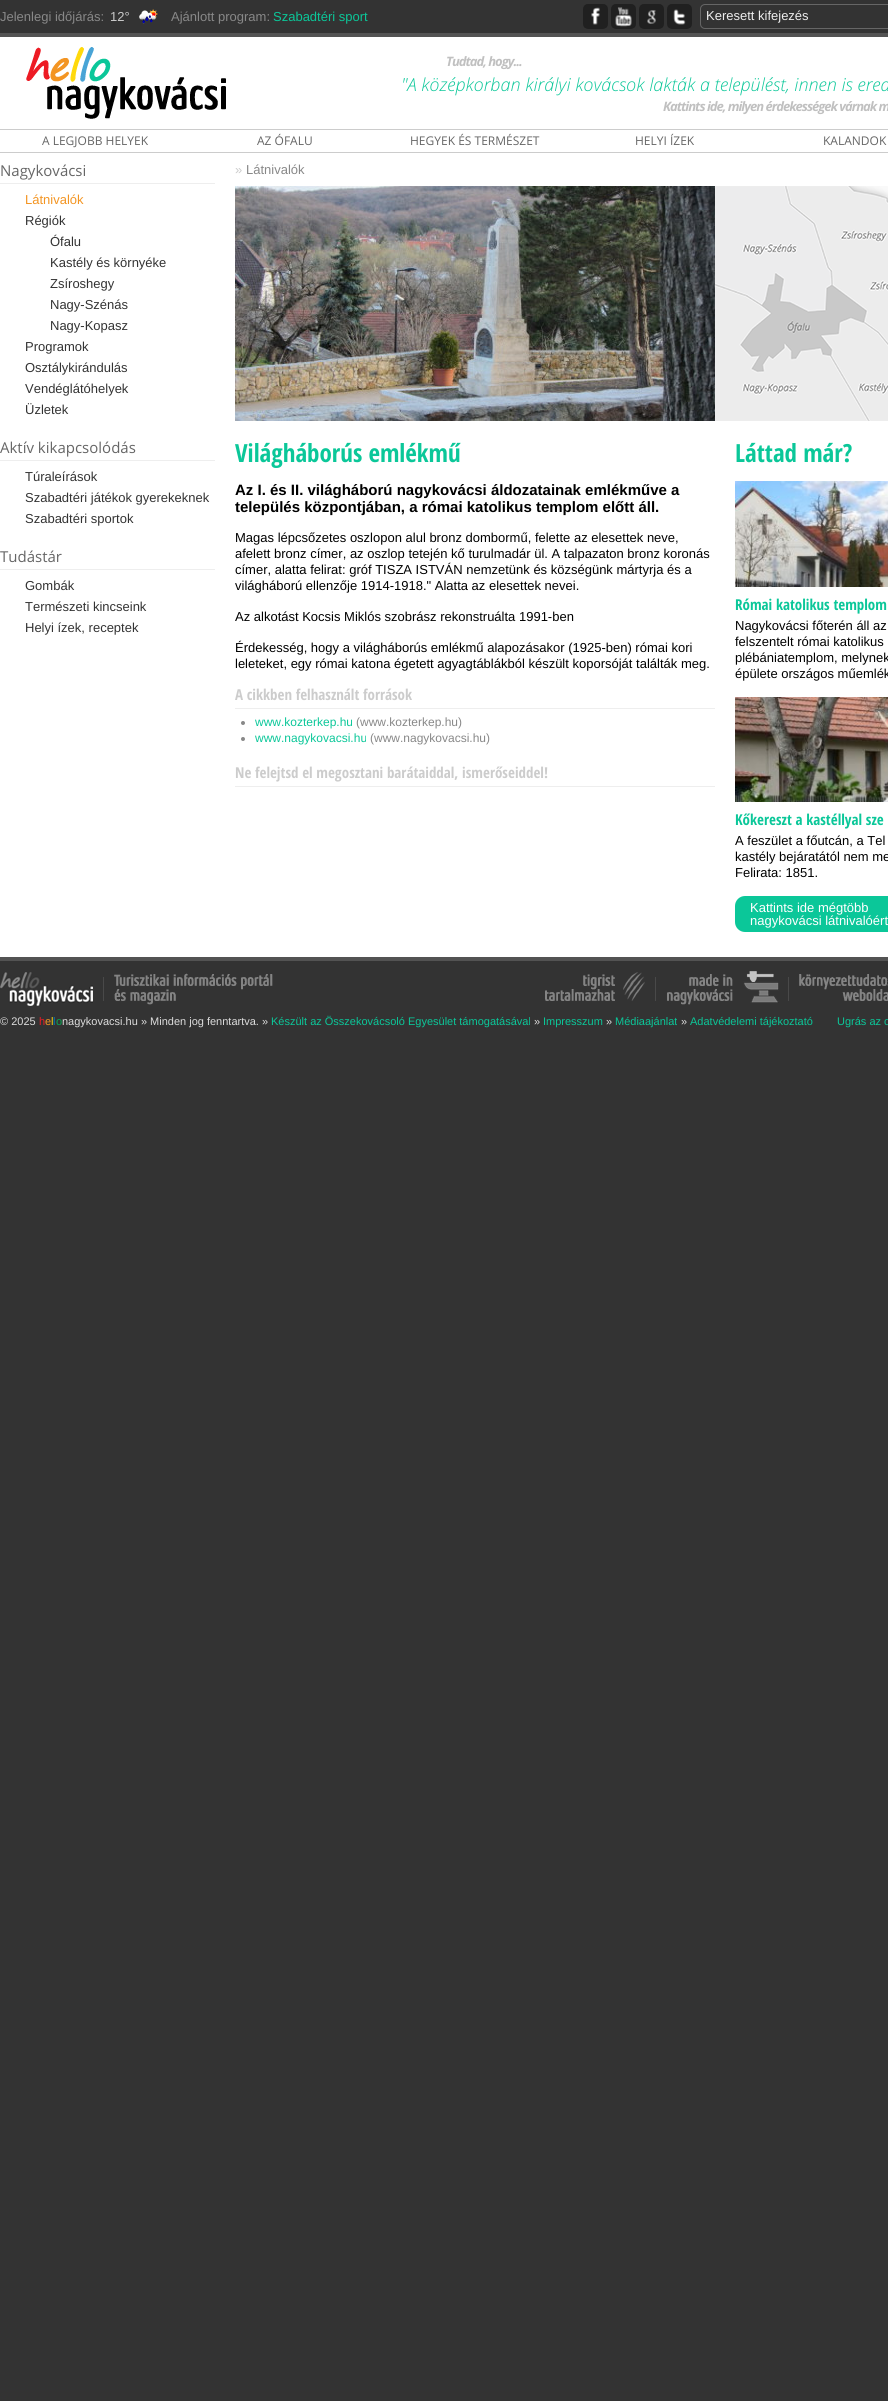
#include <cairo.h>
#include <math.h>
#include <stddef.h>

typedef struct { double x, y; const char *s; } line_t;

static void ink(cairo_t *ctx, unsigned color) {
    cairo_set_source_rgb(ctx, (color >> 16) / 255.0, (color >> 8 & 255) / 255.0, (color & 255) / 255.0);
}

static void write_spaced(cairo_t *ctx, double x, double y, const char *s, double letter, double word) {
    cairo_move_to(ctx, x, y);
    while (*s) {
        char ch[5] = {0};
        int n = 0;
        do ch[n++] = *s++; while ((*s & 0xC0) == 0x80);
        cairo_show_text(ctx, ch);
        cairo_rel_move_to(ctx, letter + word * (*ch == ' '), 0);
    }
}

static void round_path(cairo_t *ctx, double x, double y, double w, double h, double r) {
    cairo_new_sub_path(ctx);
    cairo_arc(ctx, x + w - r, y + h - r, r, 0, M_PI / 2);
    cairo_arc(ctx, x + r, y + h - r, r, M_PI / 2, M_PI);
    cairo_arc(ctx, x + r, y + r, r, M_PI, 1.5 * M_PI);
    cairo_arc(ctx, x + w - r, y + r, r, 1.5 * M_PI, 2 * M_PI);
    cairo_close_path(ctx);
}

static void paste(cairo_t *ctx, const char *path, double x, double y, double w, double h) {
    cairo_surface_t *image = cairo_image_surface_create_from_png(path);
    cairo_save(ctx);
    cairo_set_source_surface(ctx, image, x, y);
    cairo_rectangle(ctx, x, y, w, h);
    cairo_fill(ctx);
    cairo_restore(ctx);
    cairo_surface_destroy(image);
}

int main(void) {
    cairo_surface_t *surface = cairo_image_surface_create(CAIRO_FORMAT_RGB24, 888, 2401);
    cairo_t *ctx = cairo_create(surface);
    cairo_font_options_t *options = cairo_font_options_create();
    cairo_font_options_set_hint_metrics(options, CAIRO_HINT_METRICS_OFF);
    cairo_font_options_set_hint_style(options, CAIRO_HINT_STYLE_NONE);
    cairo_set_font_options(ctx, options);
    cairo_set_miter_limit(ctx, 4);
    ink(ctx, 0x333333);
    cairo_paint(ctx);
    ink(ctx, 0x535353);
    cairo_rectangle(ctx, 0, 33, 888, 4);
    cairo_fill(ctx);
    cairo_select_font_face(ctx, "Liberation Sans", CAIRO_FONT_SLANT_NORMAL, CAIRO_FONT_WEIGHT_NORMAL);
    cairo_set_font_size(ctx, 13);
    ink(ctx, 0x888888);
    cairo_move_to(ctx, 0, 21);
    cairo_show_text(ctx, "Jelenlegi időjárás:");
    ink(ctx, 0xCCCCCC);
    cairo_move_to(ctx, 110, 21);
    cairo_show_text(ctx, "12°");
    paste(ctx, "media/1.png", 139, 9, 19, 15);
    ink(ctx, 0x888888);
    cairo_move_to(ctx, 171, 21);
    cairo_show_text(ctx, "Ajánlott program:");
    ink(ctx, 0x0BC799);
    cairo_move_to(ctx, 273, 21);
    cairo_show_text(ctx, "Szabadtéri sport");
    paste(ctx, "media/2.png", 583, 4, 25, 25);
    paste(ctx, "media/3.png", 611, 4, 25, 25);
    paste(ctx, "media/4.png", 639, 4, 25, 25);
    paste(ctx, "media/5.png", 667, 4, 25, 25);
    round_path(ctx, 700.5, 4.5, 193, 24, 4.5);
    ink(ctx, 0x666666);
    cairo_set_line_width(ctx, 1);
    cairo_stroke(ctx);
    ink(ctx, 0xEEEEEE);
    cairo_move_to(ctx, 706, 20);
    cairo_show_text(ctx, "Keresett kifejezés");
    ink(ctx, 0xFFFFFF);
    cairo_rectangle(ctx, 0, 37, 888, 920);
    cairo_fill(ctx);
    paste(ctx, "media/6.png", 26, 47, 200, 72);
    cairo_select_font_face(ctx, "Open Sans", CAIRO_FONT_SLANT_ITALIC, CAIRO_FONT_WEIGHT_BOLD);
    ink(ctx, 0xC0C0C0);
    write_spaced(ctx, 446, 66, "Tudtad, hogy...", -1, 0);
    cairo_select_font_face(ctx, "Open Sans Light", CAIRO_FONT_SLANT_ITALIC, CAIRO_FONT_WEIGHT_NORMAL);
    cairo_set_font_size(ctx, 18);
    ink(ctx, 0x0BC799);
    cairo_move_to(ctx, 401, 91);
    cairo_show_text(ctx, "\"A középkorban királyi kovácsok lakták a települést, innen is ered");
    cairo_select_font_face(ctx, "Open Sans", CAIRO_FONT_SLANT_ITALIC, CAIRO_FONT_WEIGHT_BOLD);
    cairo_set_font_size(ctx, 13);
    ink(ctx, 0xC0C0C0);
    write_spaced(ctx, 663, 111, "Kattints ide, milyen érdekességek várnak m", -1, 0);
    ink(ctx, 0xCCCCCC);
    cairo_rectangle(ctx, 0, 129, 888, 1);
    cairo_fill(ctx);
    cairo_rectangle(ctx, 0, 152, 888, 1);
    cairo_fill(ctx);
    cairo_select_font_face(ctx, "Open Sans", CAIRO_FONT_SLANT_NORMAL, CAIRO_FONT_WEIGHT_NORMAL);
    cairo_set_font_size(ctx, 12);
    ink(ctx, 0x666666);
    {
        static const line_t items[] = {
            {42, 145, "A LEGJOBB HELYEK"},
            {257, 145, "AZ ÓFALU"},
            {410, 145, "HEGYEK ÉS TERMÉSZET"},
            {635, 145, "HELYI ÍZEK"},
            {823, 145, "KALANDOK"},
        };
        for (size_t i = 0; i < sizeof items / sizeof *items; i++) {
            cairo_move_to(ctx, items[i].x, items[i].y);
            cairo_show_text(ctx, items[i].s);
        }
    }
    ink(ctx, 0xEEEEEE);
    cairo_rectangle(ctx, 0, 183, 215, 1);
    cairo_fill(ctx);
    cairo_set_font_size(ctx, 15);
    ink(ctx, 0x666666);
    cairo_move_to(ctx, 0, 176);
    cairo_show_text(ctx, "Nagykovácsi");
    cairo_select_font_face(ctx, "Liberation Sans", CAIRO_FONT_SLANT_NORMAL, CAIRO_FONT_WEIGHT_NORMAL);
    cairo_set_font_size(ctx, 13);
    ink(ctx, 0xF39523);
    cairo_move_to(ctx, 25, 204);
    cairo_show_text(ctx, "Látnivalók");
    ink(ctx, 0x333333);
    {
        static const line_t items[] = {
            {25, 225, "Régiók"},
            {50, 246, "Ófalu"},
            {50, 267, "Kastély és környéke"},
            {50, 288, "Zsíroshegy"},
            {50, 309, "Nagy-Szénás"},
            {50, 330, "Nagy-Kopasz"},
            {25, 351, "Programok"},
            {25, 372, "Osztálykirándulás"},
            {25, 393, "Vendéglátóhelyek"},
            {25, 414, "Üzletek"},
        };
        for (size_t i = 0; i < sizeof items / sizeof *items; i++) {
            cairo_move_to(ctx, items[i].x, items[i].y);
            cairo_show_text(ctx, items[i].s);
        }
    }
    ink(ctx, 0xEEEEEE);
    cairo_rectangle(ctx, 0, 460, 215, 1);
    cairo_fill(ctx);
    cairo_select_font_face(ctx, "Open Sans", CAIRO_FONT_SLANT_NORMAL, CAIRO_FONT_WEIGHT_NORMAL);
    cairo_set_font_size(ctx, 15);
    ink(ctx, 0x666666);
    cairo_move_to(ctx, 0, 453);
    cairo_show_text(ctx, "Aktív kikapcsolódás");
    cairo_select_font_face(ctx, "Liberation Sans", CAIRO_FONT_SLANT_NORMAL, CAIRO_FONT_WEIGHT_NORMAL);
    cairo_set_font_size(ctx, 13);
    ink(ctx, 0x333333);
    {
        static const line_t items[] = {
            {25, 481, "Túraleírások"},
            {25, 502, "Szabadtéri játékok gyerekeknek"},
            {25, 523, "Szabadtéri sportok"},
        };
        for (size_t i = 0; i < sizeof items / sizeof *items; i++) {
            cairo_move_to(ctx, items[i].x, items[i].y);
            cairo_show_text(ctx, items[i].s);
        }
    }
    ink(ctx, 0xEEEEEE);
    cairo_rectangle(ctx, 0, 569, 215, 1);
    cairo_fill(ctx);
    cairo_select_font_face(ctx, "Open Sans", CAIRO_FONT_SLANT_NORMAL, CAIRO_FONT_WEIGHT_NORMAL);
    cairo_set_font_size(ctx, 15);
    ink(ctx, 0x666666);
    cairo_move_to(ctx, 0, 562);
    cairo_show_text(ctx, "Tudástár");
    cairo_select_font_face(ctx, "Liberation Sans", CAIRO_FONT_SLANT_NORMAL, CAIRO_FONT_WEIGHT_NORMAL);
    cairo_set_font_size(ctx, 13);
    ink(ctx, 0x333333);
    {
        static const line_t items[] = {
            {25, 590, "Gombák"},
            {25, 611, "Természeti kincseink"},
            {25, 632, "Helyi ízek, receptek"},
        };
        for (size_t i = 0; i < sizeof items / sizeof *items; i++) {
            cairo_move_to(ctx, items[i].x, items[i].y);
            cairo_show_text(ctx, items[i].s);
        }
    }
    ink(ctx, 0xCCCCCC);
    cairo_move_to(ctx, 235, 174);
    cairo_show_text(ctx, "»");
    ink(ctx, 0x888888);
    cairo_move_to(ctx, 246, 174);
    cairo_show_text(ctx, "Látnivalók");
    paste(ctx, "media/7.png", 235, 186, 480, 235);
    paste(ctx, "media/8.png", 715, 186, 173, 235);
    cairo_select_font_face(ctx, "Open Sans Condensed", CAIRO_FONT_SLANT_NORMAL, CAIRO_FONT_WEIGHT_BOLD);
    cairo_set_font_size(ctx, 25);
    ink(ctx, 0x0BC799);
    cairo_move_to(ctx, 235, 462);
    cairo_show_text(ctx, "Világháborús emlékmű");
    cairo_select_font_face(ctx, "Liberation Sans", CAIRO_FONT_SLANT_NORMAL, CAIRO_FONT_WEIGHT_BOLD);
    cairo_set_font_size(ctx, 15);
    ink(ctx, 0x000000);
    cairo_move_to(ctx, 235, 495);
    cairo_show_text(ctx, "Az I. és II. világháború nagykovácsi áldozatainak emlékműve a");
    cairo_move_to(ctx, 235, 512);
    cairo_show_text(ctx, "település központjában, a római katolikus templom előtt áll.");
    cairo_select_font_face(ctx, "Liberation Sans", CAIRO_FONT_SLANT_NORMAL, CAIRO_FONT_WEIGHT_NORMAL);
    cairo_set_font_size(ctx, 13);
    {
        static const line_t items[] = {
            {235, 542, "Magas lépcsőzetes oszlopon alul bronz dombormű, felette az elesettek neve,"},
            {235, 558, "afelett bronz címer, az oszlop tetején kő turulmadár ül. A talpazaton bronz koronás"},
            {235, 574, "címer, alatta felirat: gróf TISZA ISTVÁN nemzetünk és községünk mártyrja és a"},
            {235, 590, "világháború ellenzője 1914-1918.\" Alatta az elesettek nevei."},
            {235, 621, "Az alkotást Kocsis Miklós szobrász rekonstruálta 1991-ben"},
            {235, 652, "Érdekesség, hogy a világháborús emlékmű alapozásakor (1925-ben) római kori"},
            {235, 668, "leleteket, egy római katona égetett agyagtáblákból készült koporsóját találták meg."},
        };
        for (size_t i = 0; i < sizeof items / sizeof *items; i++) {
            cairo_move_to(ctx, items[i].x, items[i].y);
            cairo_show_text(ctx, items[i].s);
        }
    }
    ink(ctx, 0xEEEEEE);
    cairo_rectangle(ctx, 235, 708, 480, 1);
    cairo_fill(ctx);
    cairo_select_font_face(ctx, "Open Sans Condensed", CAIRO_FONT_SLANT_NORMAL, CAIRO_FONT_WEIGHT_BOLD);
    cairo_set_font_size(ctx, 15);
    ink(ctx, 0xCCCCCC);
    cairo_move_to(ctx, 235, 700);
    cairo_show_text(ctx, "A cikkben felhasznált források");
    ink(ctx, 0x888888);
    cairo_new_path(ctx);
    cairo_arc(ctx, 243, 723, 2, 0, 2 * M_PI);
    cairo_fill(ctx);
    cairo_select_font_face(ctx, "Liberation Sans", CAIRO_FONT_SLANT_NORMAL, CAIRO_FONT_WEIGHT_NORMAL);
    cairo_set_font_size(ctx, 12);
    ink(ctx, 0x0BC799);
    cairo_move_to(ctx, 255, 726);
    cairo_show_text(ctx, "www.kozterkep.hu");
    ink(ctx, 0x888888);
    cairo_move_to(ctx, 356, 726);
    cairo_show_text(ctx, "(www.kozterkep.hu)");
    cairo_new_path(ctx);
    cairo_arc(ctx, 243, 739, 2, 0, 2 * M_PI);
    cairo_fill(ctx);
    ink(ctx, 0x0BC799);
    cairo_move_to(ctx, 255, 742);
    cairo_show_text(ctx, "www.nagykovacsi.hu");
    ink(ctx, 0x888888);
    cairo_move_to(ctx, 370, 742);
    cairo_show_text(ctx, "(www.nagykovacsi.hu)");
    ink(ctx, 0xEEEEEE);
    cairo_rectangle(ctx, 235, 786, 480, 1);
    cairo_fill(ctx);
    cairo_select_font_face(ctx, "Open Sans Condensed", CAIRO_FONT_SLANT_NORMAL, CAIRO_FONT_WEIGHT_BOLD);
    cairo_set_font_size(ctx, 15);
    ink(ctx, 0xCCCCCC);
    cairo_move_to(ctx, 235, 778);
    cairo_show_text(ctx, "Ne felejtsd el megosztani barátaiddal, ismerőseiddel!");
    cairo_set_font_size(ctx, 25);
    ink(ctx, 0x0BC799);
    cairo_move_to(ctx, 735, 462);
    cairo_show_text(ctx, "Láttad már?");
    paste(ctx, "media/9.png", 735, 481, 153, 106);
    cairo_set_font_size(ctx, 15);
    cairo_move_to(ctx, 735, 610);
    cairo_show_text(ctx, "Római katolikus templom");
    cairo_select_font_face(ctx, "Liberation Sans", CAIRO_FONT_SLANT_NORMAL, CAIRO_FONT_WEIGHT_NORMAL);
    cairo_set_font_size(ctx, 13);
    ink(ctx, 0x000000);
    {
        static const line_t items[] = {
            {735, 630, "Nagykovácsi főterén áll az"},
            {735, 646, "felszentelt római katolikus"},
            {735, 662, "plébániatemplom, melynek"},
            {735, 678, "épülete országos műemlék"},
        };
        for (size_t i = 0; i < sizeof items / sizeof *items; i++) {
            cairo_move_to(ctx, items[i].x, items[i].y);
            cairo_show_text(ctx, items[i].s);
        }
    }
    paste(ctx, "media/10.png", 735, 697, 153, 105);
    cairo_select_font_face(ctx, "Open Sans Condensed", CAIRO_FONT_SLANT_NORMAL, CAIRO_FONT_WEIGHT_BOLD);
    cairo_set_font_size(ctx, 15);
    ink(ctx, 0x0BC799);
    cairo_move_to(ctx, 735, 825);
    cairo_show_text(ctx, "Kőkereszt a kastéllyal sze");
    cairo_select_font_face(ctx, "Liberation Sans", CAIRO_FONT_SLANT_NORMAL, CAIRO_FONT_WEIGHT_NORMAL);
    cairo_set_font_size(ctx, 13);
    ink(ctx, 0x000000);
    {
        static const line_t items[] = {
            {735, 845, "A feszület a főutcán, a Tel"},
            {735, 861, "kastély bejáratától nem me"},
            {735, 877, "Felirata: 1851."},
        };
        for (size_t i = 0; i < sizeof items / sizeof *items; i++) {
            cairo_move_to(ctx, items[i].x, items[i].y);
            cairo_show_text(ctx, items[i].s);
        }
    }
    ink(ctx, 0x0BC799);
    round_path(ctx, 735, 896, 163, 36, 10);
    cairo_fill(ctx);
    ink(ctx, 0xFFFFFF);
    cairo_move_to(ctx, 750, 912);
    cairo_show_text(ctx, "Kattints ide mégtöbb");
    cairo_move_to(ctx, 750, 925);
    cairo_show_text(ctx, "nagykovácsi látnivalóért");
    ink(ctx, 0x535353);
    cairo_rectangle(ctx, 0, 957, 888, 4);
    cairo_fill(ctx);
    paste(ctx, "media/11.png", 0, 971, 888, 35);
    cairo_set_font_size(ctx, 11);
    ink(ctx, 0xDDDDDD);
    cairo_move_to(ctx, 0, 1025);
    cairo_show_text(ctx, "© 2025");
    ink(ctx, 0xED1B24);
    cairo_move_to(ctx, 39, 1025);
    cairo_show_text(ctx, "h");
    ink(ctx, 0xF39523);
    cairo_move_to(ctx, 45, 1025);
    cairo_show_text(ctx, "e");
    ink(ctx, 0xFFD90C);
    cairo_move_to(ctx, 51, 1025);
    cairo_show_text(ctx, "l");
    ink(ctx, 0x007BBF);
    cairo_move_to(ctx, 53, 1025);
    cairo_show_text(ctx, "l");
    ink(ctx, 0x06AA53);
    cairo_move_to(ctx, 56, 1025);
    cairo_show_text(ctx, "o");
    ink(ctx, 0xDDDDDD);
    cairo_move_to(ctx, 62, 1025);
    cairo_show_text(ctx, "nagykovacsi.hu » Minden jog fenntartva. »");
    ink(ctx, 0x0BC799);
    cairo_move_to(ctx, 271, 1025);
    cairo_show_text(ctx, "Készült az Összekovácsoló Egyesület támogatásával");
    ink(ctx, 0xDDDDDD);
    cairo_move_to(ctx, 534, 1025);
    cairo_show_text(ctx, "»");
    ink(ctx, 0x0BC799);
    cairo_move_to(ctx, 543, 1025);
    cairo_show_text(ctx, "Impresszum");
    ink(ctx, 0xDDDDDD);
    cairo_move_to(ctx, 606, 1025);
    cairo_show_text(ctx, "»");
    ink(ctx, 0x0BC799);
    cairo_move_to(ctx, 615, 1025);
    cairo_show_text(ctx, "Médiaajánlat");
    ink(ctx, 0xDDDDDD);
    cairo_move_to(ctx, 681, 1025);
    cairo_show_text(ctx, "»");
    ink(ctx, 0x0BC799);
    cairo_move_to(ctx, 690, 1025);
    cairo_show_text(ctx, "Adatvédelemi tájékoztató");
    cairo_move_to(ctx, 837, 1025);
    cairo_show_text(ctx, "Ugrás az o");
    cairo_surface_write_to_png(surface, "image.png");
    cairo_font_options_destroy(options);
    cairo_destroy(ctx);
    cairo_surface_destroy(surface);
    return 0;
}
